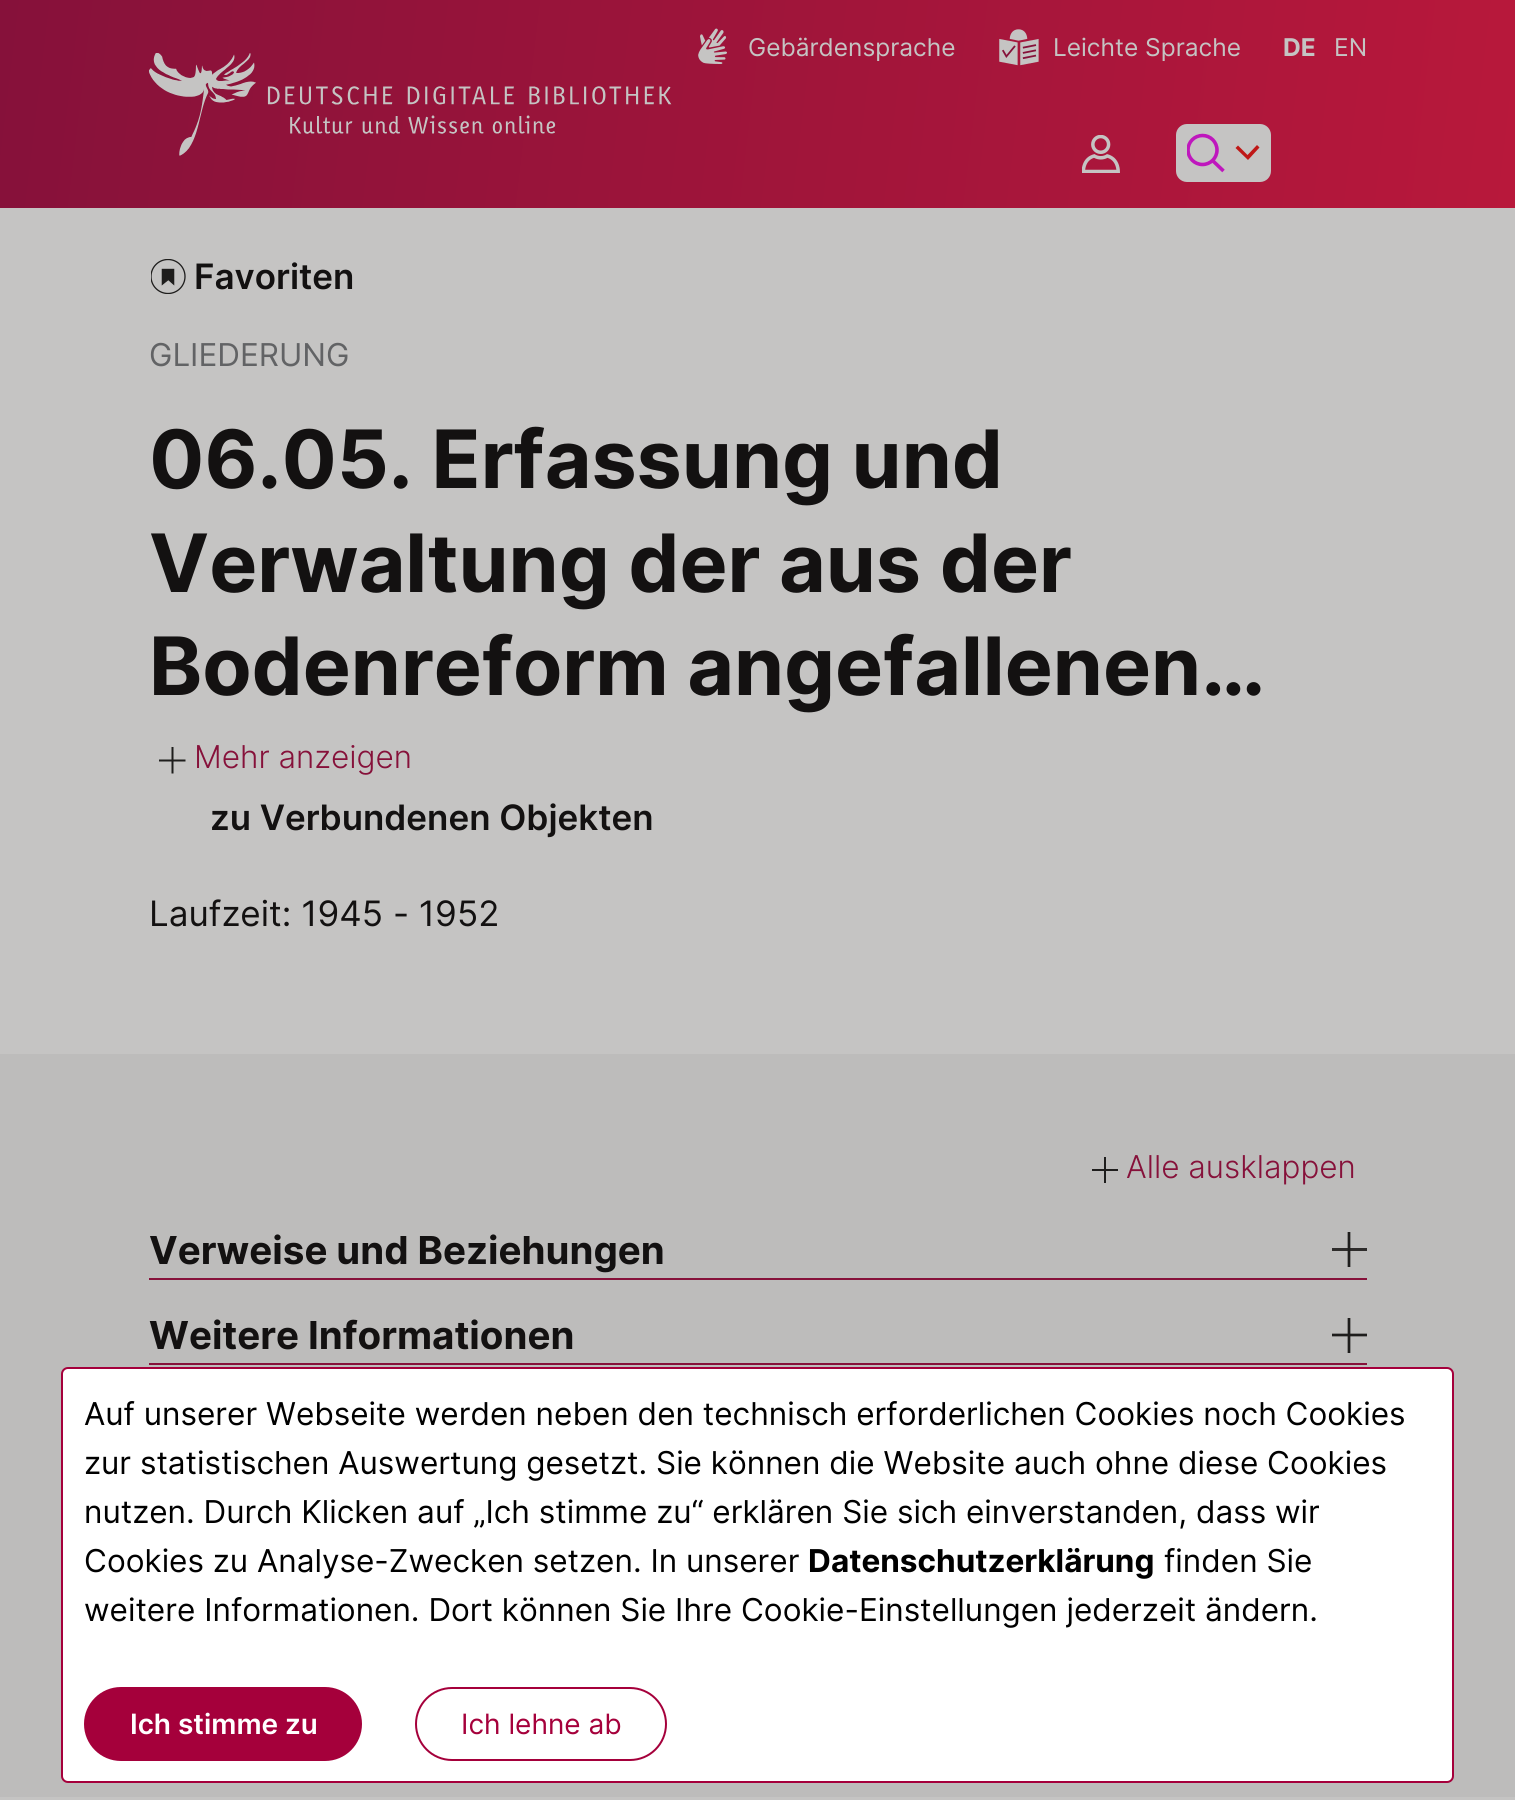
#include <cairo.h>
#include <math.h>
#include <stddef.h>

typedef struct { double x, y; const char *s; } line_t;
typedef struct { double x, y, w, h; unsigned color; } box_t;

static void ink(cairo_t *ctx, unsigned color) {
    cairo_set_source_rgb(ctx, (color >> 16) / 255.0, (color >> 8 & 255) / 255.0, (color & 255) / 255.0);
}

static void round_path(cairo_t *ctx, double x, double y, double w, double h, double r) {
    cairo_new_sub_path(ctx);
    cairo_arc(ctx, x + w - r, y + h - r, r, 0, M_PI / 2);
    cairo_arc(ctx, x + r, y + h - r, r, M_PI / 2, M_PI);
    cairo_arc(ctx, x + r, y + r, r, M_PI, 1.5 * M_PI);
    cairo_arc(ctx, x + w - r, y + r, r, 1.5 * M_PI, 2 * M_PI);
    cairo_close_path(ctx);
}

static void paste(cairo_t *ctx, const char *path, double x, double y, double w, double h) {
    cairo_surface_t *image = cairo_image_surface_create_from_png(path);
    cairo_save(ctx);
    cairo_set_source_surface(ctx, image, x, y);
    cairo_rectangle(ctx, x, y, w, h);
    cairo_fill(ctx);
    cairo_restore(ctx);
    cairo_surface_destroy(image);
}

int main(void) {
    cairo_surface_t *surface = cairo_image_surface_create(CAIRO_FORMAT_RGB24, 1515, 1800);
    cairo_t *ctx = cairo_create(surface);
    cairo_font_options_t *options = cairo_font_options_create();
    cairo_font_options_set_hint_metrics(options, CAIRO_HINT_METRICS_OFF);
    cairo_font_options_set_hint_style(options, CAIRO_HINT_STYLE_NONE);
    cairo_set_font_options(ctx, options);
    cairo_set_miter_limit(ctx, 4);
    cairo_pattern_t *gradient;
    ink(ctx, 0xC5C4C3);
    cairo_paint(ctx);
    gradient = cairo_pattern_create_linear(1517, 195, -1.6, 13);
    cairo_pattern_add_color_stop_rgba(gradient, 0, 0.722, 0.094, 0.231, 1);
    cairo_pattern_add_color_stop_rgba(gradient, 1, 0.525, 0.067, 0.227, 1);
    cairo_set_source(ctx, gradient);
    cairo_pattern_destroy(gradient);
    cairo_rectangle(ctx, 0, 0, 1515, 208);
    cairo_fill(ctx);
    paste(ctx, "media/1.png", 698, 28, 29, 36);
    cairo_select_font_face(ctx, "Inter", CAIRO_FONT_SLANT_NORMAL, CAIRO_FONT_WEIGHT_NORMAL);
    cairo_set_font_size(ctx, 24.5);
    ink(ctx, 0xC5C4C3);
    cairo_move_to(ctx, 748, 56);
    cairo_show_text(ctx, "Gebärdensprache");
    paste(ctx, "media/2.png", 999, 29, 40, 37);
    cairo_move_to(ctx, 1053, 56);
    cairo_show_text(ctx, "Leichte Sprache");
    cairo_select_font_face(ctx, "Inter", CAIRO_FONT_SLANT_NORMAL, CAIRO_FONT_WEIGHT_BOLD);
    cairo_move_to(ctx, 1283, 56);
    cairo_show_text(ctx, "DE");
    cairo_select_font_face(ctx, "Inter", CAIRO_FONT_SLANT_NORMAL, CAIRO_FONT_WEIGHT_NORMAL);
    cairo_move_to(ctx, 1334, 56);
    cairo_show_text(ctx, "EN");
    paste(ctx, "media/3.png", 1082, 135, 38, 38);
    round_path(ctx, 1176, 124, 95, 58, 11);
    cairo_fill(ctx);
    cairo_new_path(ctx);
    cairo_move_to(ctx, 1212.5, 160.5);
    cairo_line_to(ctx, 1223.5, 171);
    ink(ctx, 0xBF17BD);
    cairo_set_line_width(ctx, 3.6);
    cairo_stroke(ctx);
    cairo_save(ctx);
    cairo_rectangle(ctx, 1187, 124, 38, 58);
    cairo_clip(ctx);
    cairo_arc(ctx, 1202.5, 150, 14.5, 0, 2 * M_PI);
    cairo_stroke(ctx);
    cairo_restore(ctx);
    ink(ctx, 0xBF1716);
    cairo_set_fill_rule(ctx, CAIRO_FILL_RULE_EVEN_ODD);
    cairo_new_path(ctx);
    cairo_move_to(ctx, 1259.5, 147.5);
    cairo_line_to(ctx, 1248, 160);
    cairo_line_to(ctx, 1235.5, 148);
    cairo_line_to(ctx, 1238, 145.5);
    cairo_line_to(ctx, 1247.5, 155);
    cairo_line_to(ctx, 1257, 145);
    cairo_close_path(ctx);
    cairo_fill(ctx);
    paste(ctx, "media/4.png", 149, 53, 523, 103);
    paste(ctx, "media/5.png", 151, 259, 35, 35);
    cairo_select_font_face(ctx, "Inter SemiBold", CAIRO_FONT_SLANT_NORMAL, CAIRO_FONT_WEIGHT_NORMAL);
    cairo_set_font_size(ctx, 35);
    ink(ctx, 0x131111);
    cairo_move_to(ctx, 194, 289);
    cairo_show_text(ctx, "Favoriten");
    cairo_select_font_face(ctx, "Inter", CAIRO_FONT_SLANT_NORMAL, CAIRO_FONT_WEIGHT_NORMAL);
    cairo_set_font_size(ctx, 31.5);
    ink(ctx, 0x626365);
    cairo_move_to(ctx, 149, 366);
    cairo_show_text(ctx, "GLIEDERUNG");
    cairo_select_font_face(ctx, "Inter", CAIRO_FONT_SLANT_NORMAL, CAIRO_FONT_WEIGHT_BOLD);
    cairo_set_font_size(ctx, 80.5);
    ink(ctx, 0x131111);
    {
        static const line_t items[] = {
            {149, 488, "06.05. Erfassung und"},
            {149, 592, "Verwaltung der aus der"},
            {149, 695, "Bodenreform angefallenen…"},
        };
        for (size_t i = 0; i < sizeof items / sizeof *items; i++) {
            cairo_move_to(ctx, items[i].x, items[i].y);
            cairo_show_text(ctx, items[i].s);
        }
    }
    cairo_new_path(ctx);
    cairo_move_to(ctx, 172.5, 747);
    cairo_line_to(ctx, 172.5, 773.5);
    cairo_move_to(ctx, 159, 760.5);
    cairo_line_to(ctx, 185.5, 760.5);
    ink(ctx, 0x1E1D1C);
    cairo_set_line_width(ctx, 2);
    cairo_stroke(ctx);
    cairo_select_font_face(ctx, "Inter Light", CAIRO_FONT_SLANT_NORMAL, CAIRO_FONT_WEIGHT_NORMAL);
    cairo_set_font_size(ctx, 31.5);
    ink(ctx, 0x86113A);
    cairo_move_to(ctx, 194, 768);
    cairo_show_text(ctx, "Mehr anzeigen");
    cairo_select_font_face(ctx, "Inter SemiBold", CAIRO_FONT_SLANT_NORMAL, CAIRO_FONT_WEIGHT_NORMAL);
    cairo_set_font_size(ctx, 35);
    ink(ctx, 0x131111);
    cairo_move_to(ctx, 210, 830);
    cairo_show_text(ctx, "zu Verbundenen Objekten");
    cairo_select_font_face(ctx, "Inter", CAIRO_FONT_SLANT_NORMAL, CAIRO_FONT_WEIGHT_NORMAL);
    cairo_move_to(ctx, 149, 926);
    cairo_show_text(ctx, "Laufzeit: 1945 - 1952");
    {
        static const box_t items[] = {
            {0, 1054, 1515, 743, 0xBDBCBB},
            {1104, 1157, 2, 26, 0x1E1D1C},
            {1092, 1169, 26, 2, 0x1E1D1C},
        };
        for (size_t i = 0; i < sizeof items / sizeof *items; i++) {
            ink(ctx, items[i].color);
            cairo_rectangle(ctx, items[i].x, items[i].y, items[i].w, items[i].h);
            cairo_fill(ctx);
        }
    }
    cairo_select_font_face(ctx, "Inter Light", CAIRO_FONT_SLANT_NORMAL, CAIRO_FONT_WEIGHT_NORMAL);
    cairo_set_font_size(ctx, 31.5);
    ink(ctx, 0x86113A);
    cairo_move_to(ctx, 1126, 1178);
    cairo_show_text(ctx, "Alle ausklappen");
    cairo_rectangle(ctx, 149, 1278, 1218, 2);
    cairo_fill(ctx);
    cairo_select_font_face(ctx, "Inter", CAIRO_FONT_SLANT_NORMAL, CAIRO_FONT_WEIGHT_BOLD);
    cairo_set_font_size(ctx, 38.5);
    ink(ctx, 0x131111);
    cairo_move_to(ctx, 149, 1264);
    cairo_show_text(ctx, "Verweise und Beziehungen");
    cairo_new_path(ctx);
    cairo_move_to(ctx, 1349, 1232);
    cairo_line_to(ctx, 1349, 1267);
    ink(ctx, 0x1E1D1C);
    cairo_set_line_width(ctx, 2.7);
    cairo_stroke(ctx);
    cairo_set_source_rgba(ctx, 0.118, 0.114, 0.11, 0.9);
    cairo_rectangle(ctx, 1332, 1248, 35, 3);
    cairo_fill(ctx);
    ink(ctx, 0x86113A);
    cairo_rectangle(ctx, 149, 1363, 1218, 2);
    cairo_fill(ctx);
    ink(ctx, 0x131111);
    cairo_move_to(ctx, 149, 1349);
    cairo_show_text(ctx, "Weitere Informationen");
    cairo_new_path(ctx);
    cairo_move_to(ctx, 1349, 1318);
    cairo_line_to(ctx, 1349, 1353);
    cairo_move_to(ctx, 1332, 1335);
    cairo_line_to(ctx, 1367, 1335);
    ink(ctx, 0x1E1D1C);
    cairo_stroke(ctx);
    ink(ctx, 0xFFFFFF);
    round_path(ctx, 62, 1368, 1391, 414, 6);
    cairo_fill_preserve(ctx);
    ink(ctx, 0xA5003B);
    cairo_set_line_width(ctx, 2);
    cairo_stroke(ctx);
    cairo_select_font_face(ctx, "Inter", CAIRO_FONT_SLANT_NORMAL, CAIRO_FONT_WEIGHT_NORMAL);
    cairo_set_font_size(ctx, 31.5);
    ink(ctx, 0x000000);
    {
        static const line_t items[] = {
            {84, 1425, "Auf unserer Webseite werden neben den technisch erforderlichen Cookies noch Cookies"},
            {84, 1474, "zur statistischen Auswertung gesetzt. Sie können die Website auch ohne diese Cookies"},
            {84, 1523, "nutzen. Durch Klicken auf „Ich stimme zu“ erklären Sie sich einverstanden, dass wir"},
            {84, 1572, "Cookies zu Analyse-Zwecken setzen. In unserer"},
        };
        for (size_t i = 0; i < sizeof items / sizeof *items; i++) {
            cairo_move_to(ctx, items[i].x, items[i].y);
            cairo_show_text(ctx, items[i].s);
        }
    }
    cairo_select_font_face(ctx, "Inter", CAIRO_FONT_SLANT_NORMAL, CAIRO_FONT_WEIGHT_BOLD);
    cairo_move_to(ctx, 808, 1572);
    cairo_show_text(ctx, "Datenschutzerklärung");
    cairo_select_font_face(ctx, "Inter", CAIRO_FONT_SLANT_NORMAL, CAIRO_FONT_WEIGHT_NORMAL);
    cairo_move_to(ctx, 1164, 1572);
    cairo_show_text(ctx, "finden Sie");
    cairo_move_to(ctx, 84, 1621);
    cairo_show_text(ctx, "weitere Informationen. Dort können Sie Ihre Cookie-Einstellungen jederzeit ändern.");
    ink(ctx, 0xA5003B);
    round_path(ctx, 85, 1688, 276, 72, 36);
    cairo_fill_preserve(ctx);
    cairo_stroke(ctx);
    cairo_select_font_face(ctx, "Inter SemiBold", CAIRO_FONT_SLANT_NORMAL, CAIRO_FONT_WEIGHT_NORMAL);
    cairo_set_font_size(ctx, 28);
    ink(ctx, 0xFFFFFF);
    cairo_move_to(ctx, 130, 1734);
    cairo_show_text(ctx, "Ich stimme zu");
    round_path(ctx, 416, 1688, 250, 72, 36);
    ink(ctx, 0xA5003B);
    cairo_stroke(ctx);
    cairo_select_font_face(ctx, "Inter", CAIRO_FONT_SLANT_NORMAL, CAIRO_FONT_WEIGHT_NORMAL);
    cairo_move_to(ctx, 461, 1734);
    cairo_show_text(ctx, "Ich lehne ab");
    cairo_surface_write_to_png(surface, "image.png");
    cairo_font_options_destroy(options);
    cairo_destroy(ctx);
    cairo_surface_destroy(surface);
    return 0;
}
